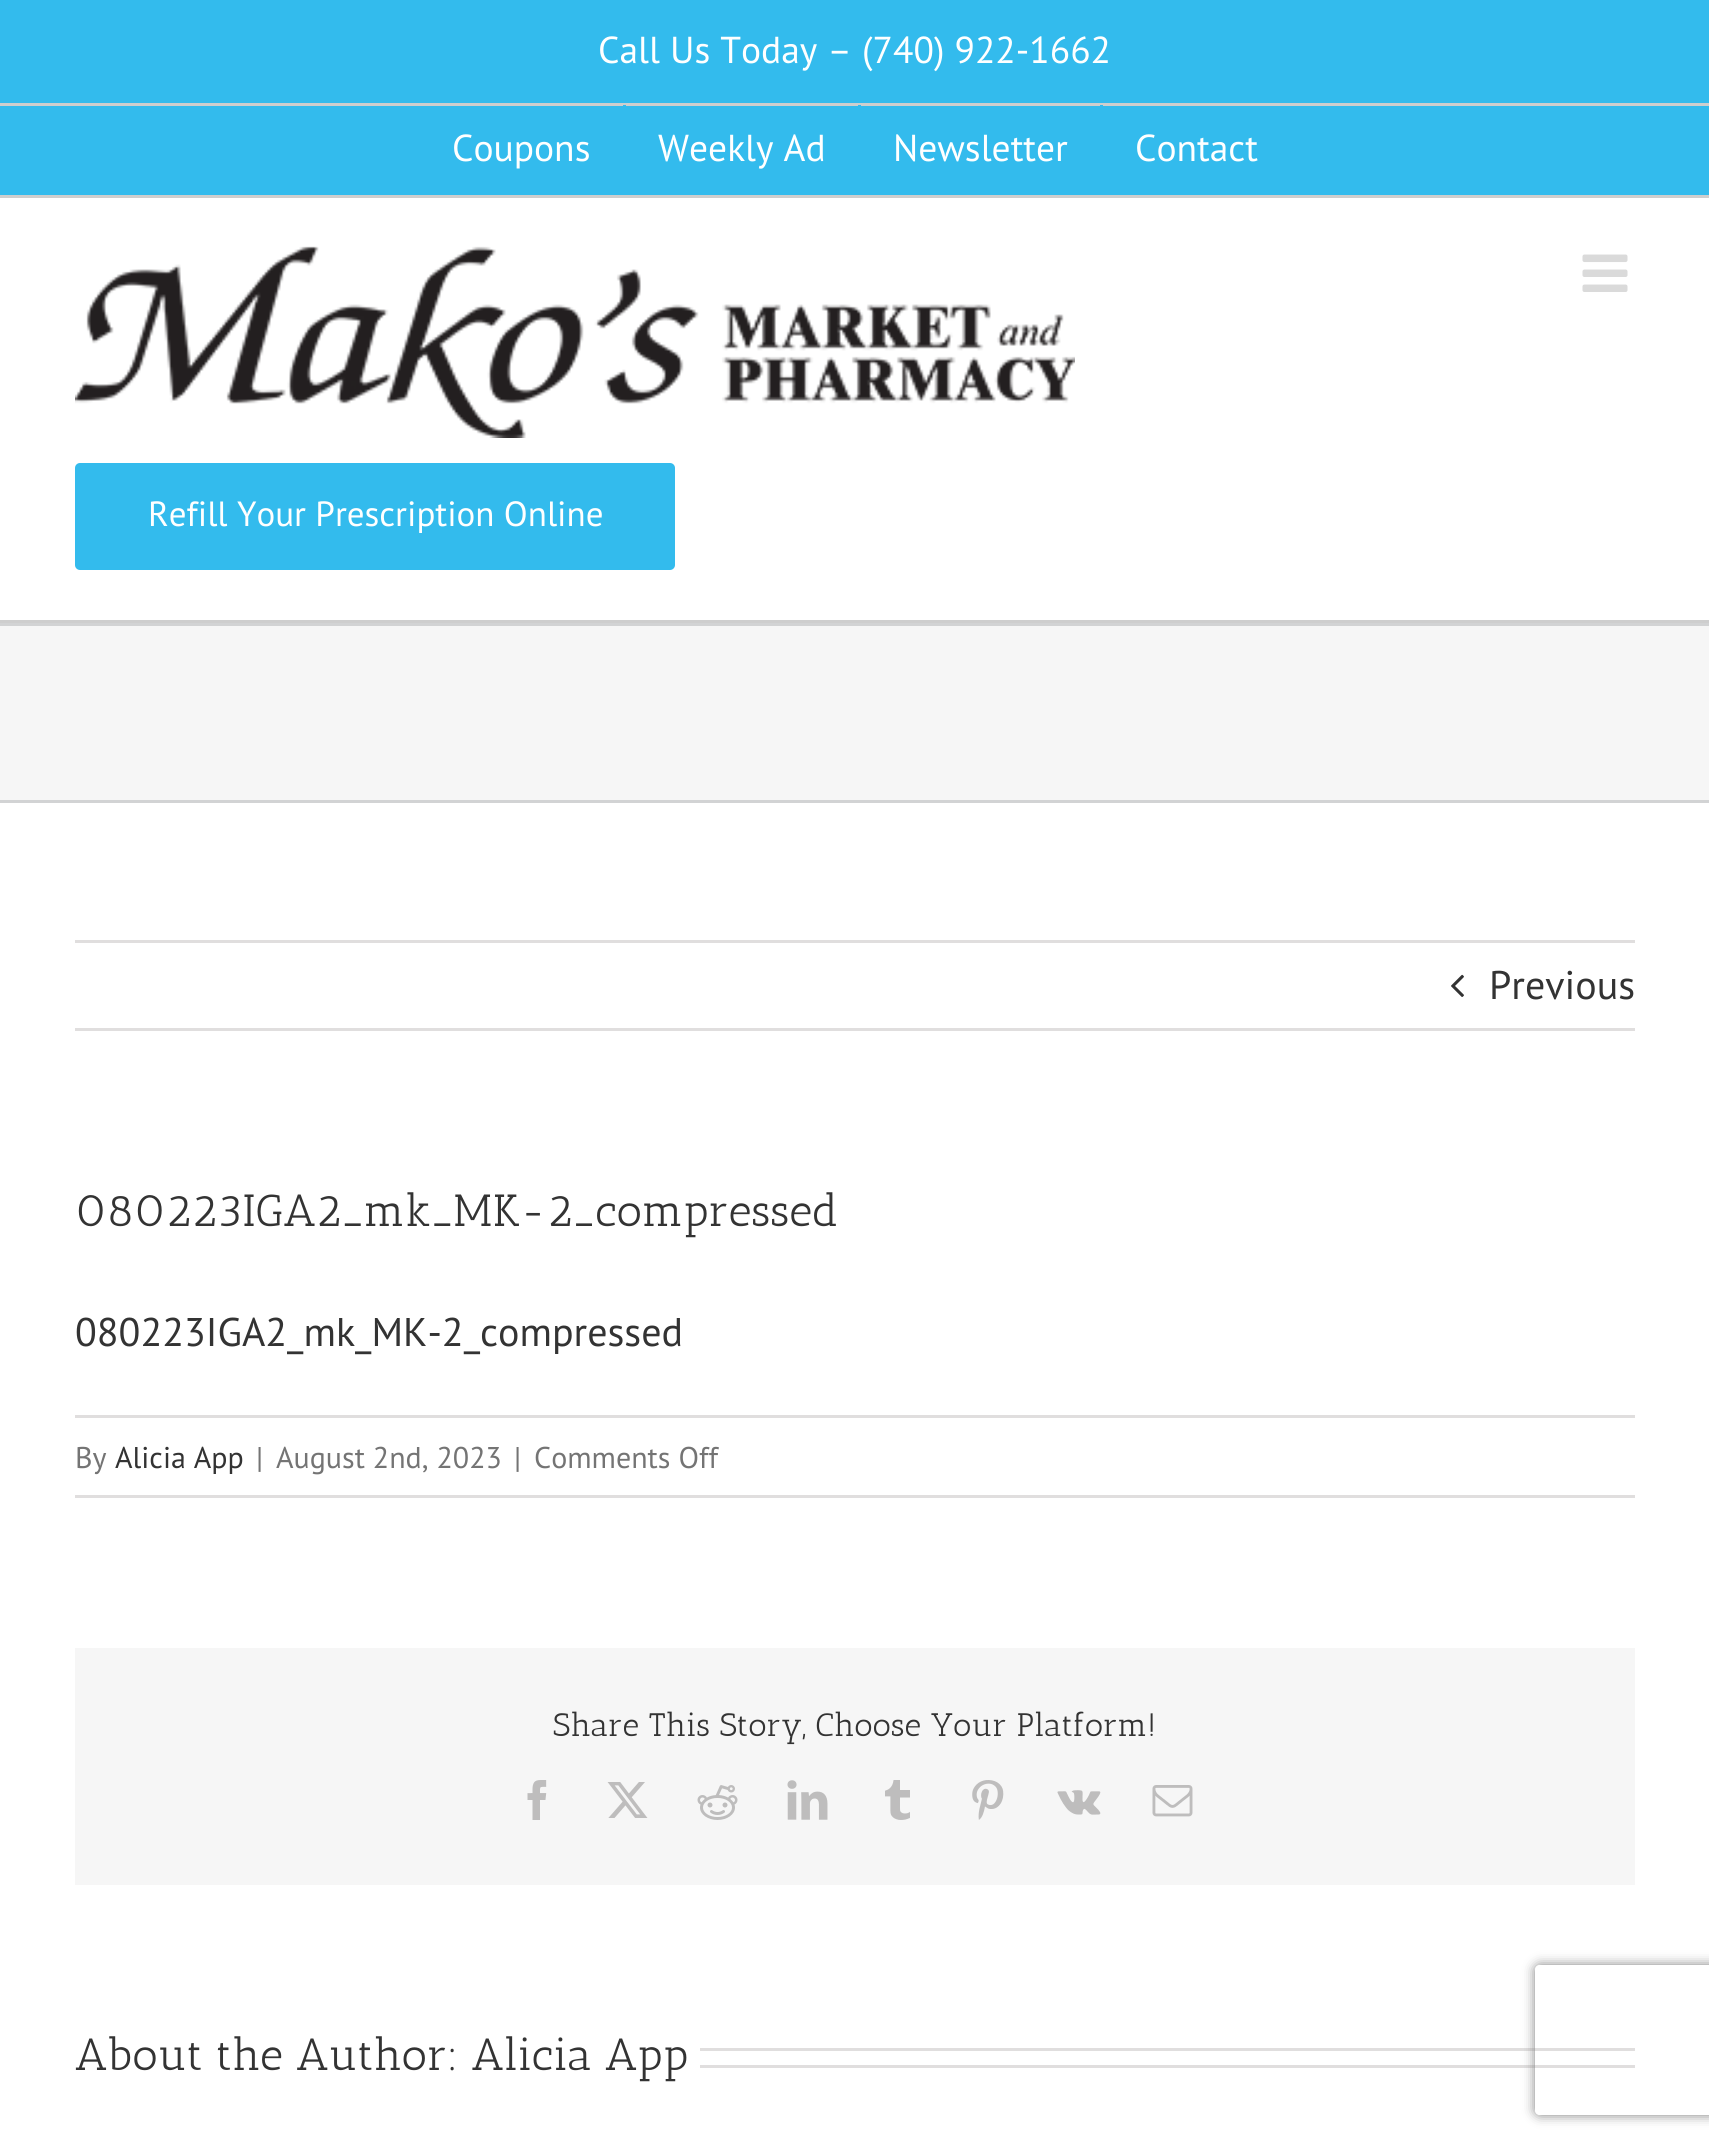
#include <cairo.h>
#include <math.h>
#include <stddef.h>

typedef struct { double x, y; const char *s; } line_t;
typedef struct { double x, y, w, h; unsigned color; } box_t;

static void ink(cairo_t *ctx, unsigned color) {
    cairo_set_source_rgb(ctx, (color >> 16) / 255.0, (color >> 8 & 255) / 255.0, (color & 255) / 255.0);
}

static void round_path(cairo_t *ctx, double x, double y, double w, double h, double r) {
    cairo_new_sub_path(ctx);
    cairo_arc(ctx, x + w - r, y + h - r, r, 0, M_PI / 2);
    cairo_arc(ctx, x + r, y + h - r, r, M_PI / 2, M_PI);
    cairo_arc(ctx, x + r, y + r, r, M_PI, 1.5 * M_PI);
    cairo_arc(ctx, x + w - r, y + r, r, 1.5 * M_PI, 2 * M_PI);
    cairo_close_path(ctx);
}

static void blur_box(cairo_t *ctx, double x, double y, double w, double h, double r, double blur, double alpha) {
    cairo_push_group_with_content(ctx, CAIRO_CONTENT_ALPHA);
    cairo_set_operator(ctx, CAIRO_OPERATOR_SOURCE);
    for (int i = 15; i >= -15 && fmin(w, h) + blur * i / 3 > 0; i -= 2) {
        double e = blur * i / 6;
        cairo_set_source_rgba(ctx, 0, 0, 0, alpha * erfc((i - 1) / 8.5) / 2);
        round_path(ctx, x - e, y - e, w + 2 * e, h + 2 * e, fmax(0, fmin(r + e + blur * .6, fmin(w, h) / 2 + e)));
        cairo_fill(ctx);
    }
    cairo_pattern_t *soft = cairo_pop_group(ctx);
    cairo_mask(ctx, soft);
    cairo_pattern_destroy(soft);
}

static void paste(cairo_t *ctx, const char *path, double x, double y, double w, double h) {
    cairo_surface_t *image = cairo_image_surface_create_from_png(path);
    cairo_save(ctx);
    cairo_set_source_surface(ctx, image, x, y);
    cairo_rectangle(ctx, x, y, w, h);
    cairo_fill(ctx);
    cairo_restore(ctx);
    cairo_surface_destroy(image);
}

int main(void) {
    cairo_surface_t *surface = cairo_image_surface_create(CAIRO_FORMAT_RGB24, 1709, 2150);
    cairo_t *ctx = cairo_create(surface);
    cairo_font_options_t *options = cairo_font_options_create();
    cairo_font_options_set_hint_metrics(options, CAIRO_HINT_METRICS_OFF);
    cairo_font_options_set_hint_style(options, CAIRO_HINT_STYLE_NONE);
    cairo_set_font_options(ctx, options);
    cairo_set_miter_limit(ctx, 4);
    ink(ctx, 0xFFFFFF);
    cairo_paint(ctx);
    {
        static const box_t items[] = {
            {0, 0, 1709, 195, 0x33BBED},
            {0, 195, 1709, 3, 0xCECECE},
            {0, 103, 1709, 3, 0xCECECE},
        };
        for (size_t i = 0; i < sizeof items / sizeof *items; i++) {
            ink(ctx, items[i].color);
            cairo_rectangle(ctx, items[i].x, items[i].y, items[i].w, items[i].h);
            cairo_fill(ctx);
        }
    }
    cairo_select_font_face(ctx, "PT Sans", CAIRO_FONT_SLANT_NORMAL, CAIRO_FONT_WEIGHT_NORMAL);
    cairo_set_font_size(ctx, 37.5);
    ink(ctx, 0xFFFFFF);
    cairo_move_to(ctx, 598, 63);
    cairo_show_text(ctx, "Call Us Today – (740) 922-1662");
    cairo_move_to(ctx, 452, 161);
    cairo_show_text(ctx, "Coupons");
    ink(ctx, 0x33BBED);
    cairo_rectangle(ctx, 623, 105, 3, 1);
    cairo_fill(ctx);
    ink(ctx, 0xFFFFFF);
    cairo_move_to(ctx, 658, 161);
    cairo_show_text(ctx, "Weekly Ad");
    ink(ctx, 0x33BBED);
    cairo_rectangle(ctx, 858, 105, 3, 1);
    cairo_fill(ctx);
    ink(ctx, 0xFFFFFF);
    cairo_move_to(ctx, 893, 161);
    cairo_show_text(ctx, "Newsletter");
    ink(ctx, 0x33BBED);
    cairo_rectangle(ctx, 1100, 105, 3, 1);
    cairo_fill(ctx);
    ink(ctx, 0xFFFFFF);
    cairo_move_to(ctx, 1135, 161);
    cairo_show_text(ctx, "Contact");
    ink(ctx, 0xCECECE);
    cairo_rectangle(ctx, 0, 620, 1709, 3);
    cairo_fill(ctx);
    paste(ctx, "media/1.png", 1582, 254, 46, 38);
    paste(ctx, "media/2.png", 75, 246, 1000, 192);
    ink(ctx, 0x33BBED);
    round_path(ctx, 75, 463, 600, 107, 5);
    cairo_fill(ctx);
    cairo_set_font_size(ctx, 35);
    ink(ctx, 0xFFFFFF);
    cairo_move_to(ctx, 148, 526);
    cairo_show_text(ctx, "Refill Your Prescription Online");
    {
        static const box_t items[] = {
            {0, 626, 1709, 174, 0xF6F6F6},
            {0, 623, 1709, 3, 0xD2D3D4},
            {0, 800, 1709, 3, 0xD2D3D4},
            {75, 940, 1560, 3, 0xE0DEDE},
            {75, 1028, 1560, 3, 0xE0DEDE},
        };
        for (size_t i = 0; i < sizeof items / sizeof *items; i++) {
            ink(ctx, items[i].color);
            cairo_rectangle(ctx, items[i].x, items[i].y, items[i].w, items[i].h);
            cairo_fill(ctx);
        }
    }
    paste(ctx, "media/3.png", 1451, 974, 13, 23);
    cairo_set_font_size(ctx, 40);
    ink(ctx, 0x333333);
    cairo_move_to(ctx, 1489, 999);
    cairo_show_text(ctx, "Previous");
    cairo_select_font_face(ctx, "Antic Slab", CAIRO_FONT_SLANT_NORMAL, CAIRO_FONT_WEIGHT_NORMAL);
    cairo_set_font_size(ctx, 45);
    cairo_move_to(ctx, 75, 1226);
    cairo_show_text(ctx, "080223IGA2_mk_MK-2_compressed");
    cairo_select_font_face(ctx, "PT Sans", CAIRO_FONT_SLANT_NORMAL, CAIRO_FONT_WEIGHT_NORMAL);
    cairo_set_font_size(ctx, 40);
    cairo_move_to(ctx, 75, 1346);
    cairo_show_text(ctx, "080223IGA2_mk_MK-2_compressed");
    ink(ctx, 0xE0DEDE);
    cairo_rectangle(ctx, 75, 1415, 1560, 3);
    cairo_fill(ctx);
    cairo_rectangle(ctx, 75, 1495, 1560, 3);
    cairo_fill(ctx);
    cairo_set_font_size(ctx, 30);
    ink(ctx, 0x747474);
    cairo_move_to(ctx, 75, 1468);
    cairo_show_text(ctx, "By");
    ink(ctx, 0x333333);
    cairo_move_to(ctx, 115, 1468);
    cairo_show_text(ctx, "Alicia App");
    ink(ctx, 0x747474);
    {
        static const line_t items[] = {
            {256, 1468, "|"},
            {276, 1468, "August 2nd, 2023"},
            {514, 1468, "|"},
            {534, 1468, "Comments Off"},
        };
        for (size_t i = 0; i < sizeof items / sizeof *items; i++) {
            cairo_move_to(ctx, items[i].x, items[i].y);
            cairo_show_text(ctx, items[i].s);
        }
    }
    ink(ctx, 0xF6F6F6);
    cairo_rectangle(ctx, 75, 1648, 1560, 237);
    cairo_fill(ctx);
    cairo_select_font_face(ctx, "Antic Slab", CAIRO_FONT_SLANT_NORMAL, CAIRO_FONT_WEIGHT_NORMAL);
    cairo_set_font_size(ctx, 32.5);
    ink(ctx, 0x333333);
    cairo_move_to(ctx, 553, 1736);
    cairo_show_text(ctx, "Share This Story, Choose Your Platform!");
    paste(ctx, "media/4.png", 527, 1780, 20, 40);
    paste(ctx, "media/5.png", 607, 1782, 41, 36);
    paste(ctx, "media/6.png", 697, 1785, 41, 35);
    paste(ctx, "media/7.png", 787, 1780, 41, 40);
    paste(ctx, "media/8.png", 885, 1780, 25, 40);
    paste(ctx, "media/9.png", 972, 1780, 32, 40);
    paste(ctx, "media/10.png", 1057, 1790, 44, 25);
    paste(ctx, "media/11.png", 1152, 1785, 41, 32);
    cairo_set_font_size(ctx, 45);
    cairo_move_to(ctx, 75, 2070);
    cairo_show_text(ctx, "About the Author: Alicia App");
    ink(ctx, 0xE0DEDE);
    cairo_rectangle(ctx, 700, 2048, 935, 3);
    cairo_fill(ctx);
    cairo_rectangle(ctx, 700, 2065, 935, 3);
    cairo_fill(ctx);
    cairo_save(ctx);
    cairo_set_fill_rule(ctx, CAIRO_FILL_RULE_EVEN_ODD);
    cairo_new_path(ctx);
    cairo_move_to(ctx, 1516, 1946);
    cairo_line_to(ctx, 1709, 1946);
    cairo_line_to(ctx, 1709, 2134);
    cairo_line_to(ctx, 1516, 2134);
    cairo_close_path(ctx);
    cairo_move_to(ctx, 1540, 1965);
    cairo_line_to(ctx, 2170, 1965);
    cairo_curve_to(ctx, 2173, 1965, 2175, 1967, 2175, 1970);
    cairo_line_to(ctx, 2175, 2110);
    cairo_curve_to(ctx, 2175, 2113, 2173, 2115, 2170, 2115);
    cairo_line_to(ctx, 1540, 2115);
    cairo_curve_to(ctx, 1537, 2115, 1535, 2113, 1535, 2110);
    cairo_line_to(ctx, 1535, 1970);
    cairo_curve_to(ctx, 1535, 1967, 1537, 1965, 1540, 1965);
    cairo_close_path(ctx);
    cairo_clip(ctx);
    ink(ctx, 0x808080);
    blur_box(ctx, 1535, 1965, 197, 150, 5, 6, 1);
    cairo_restore(ctx);
    cairo_surface_write_to_png(surface, "image.png");
    cairo_font_options_destroy(options);
    cairo_destroy(ctx);
    cairo_surface_destroy(surface);
    return 0;
}
